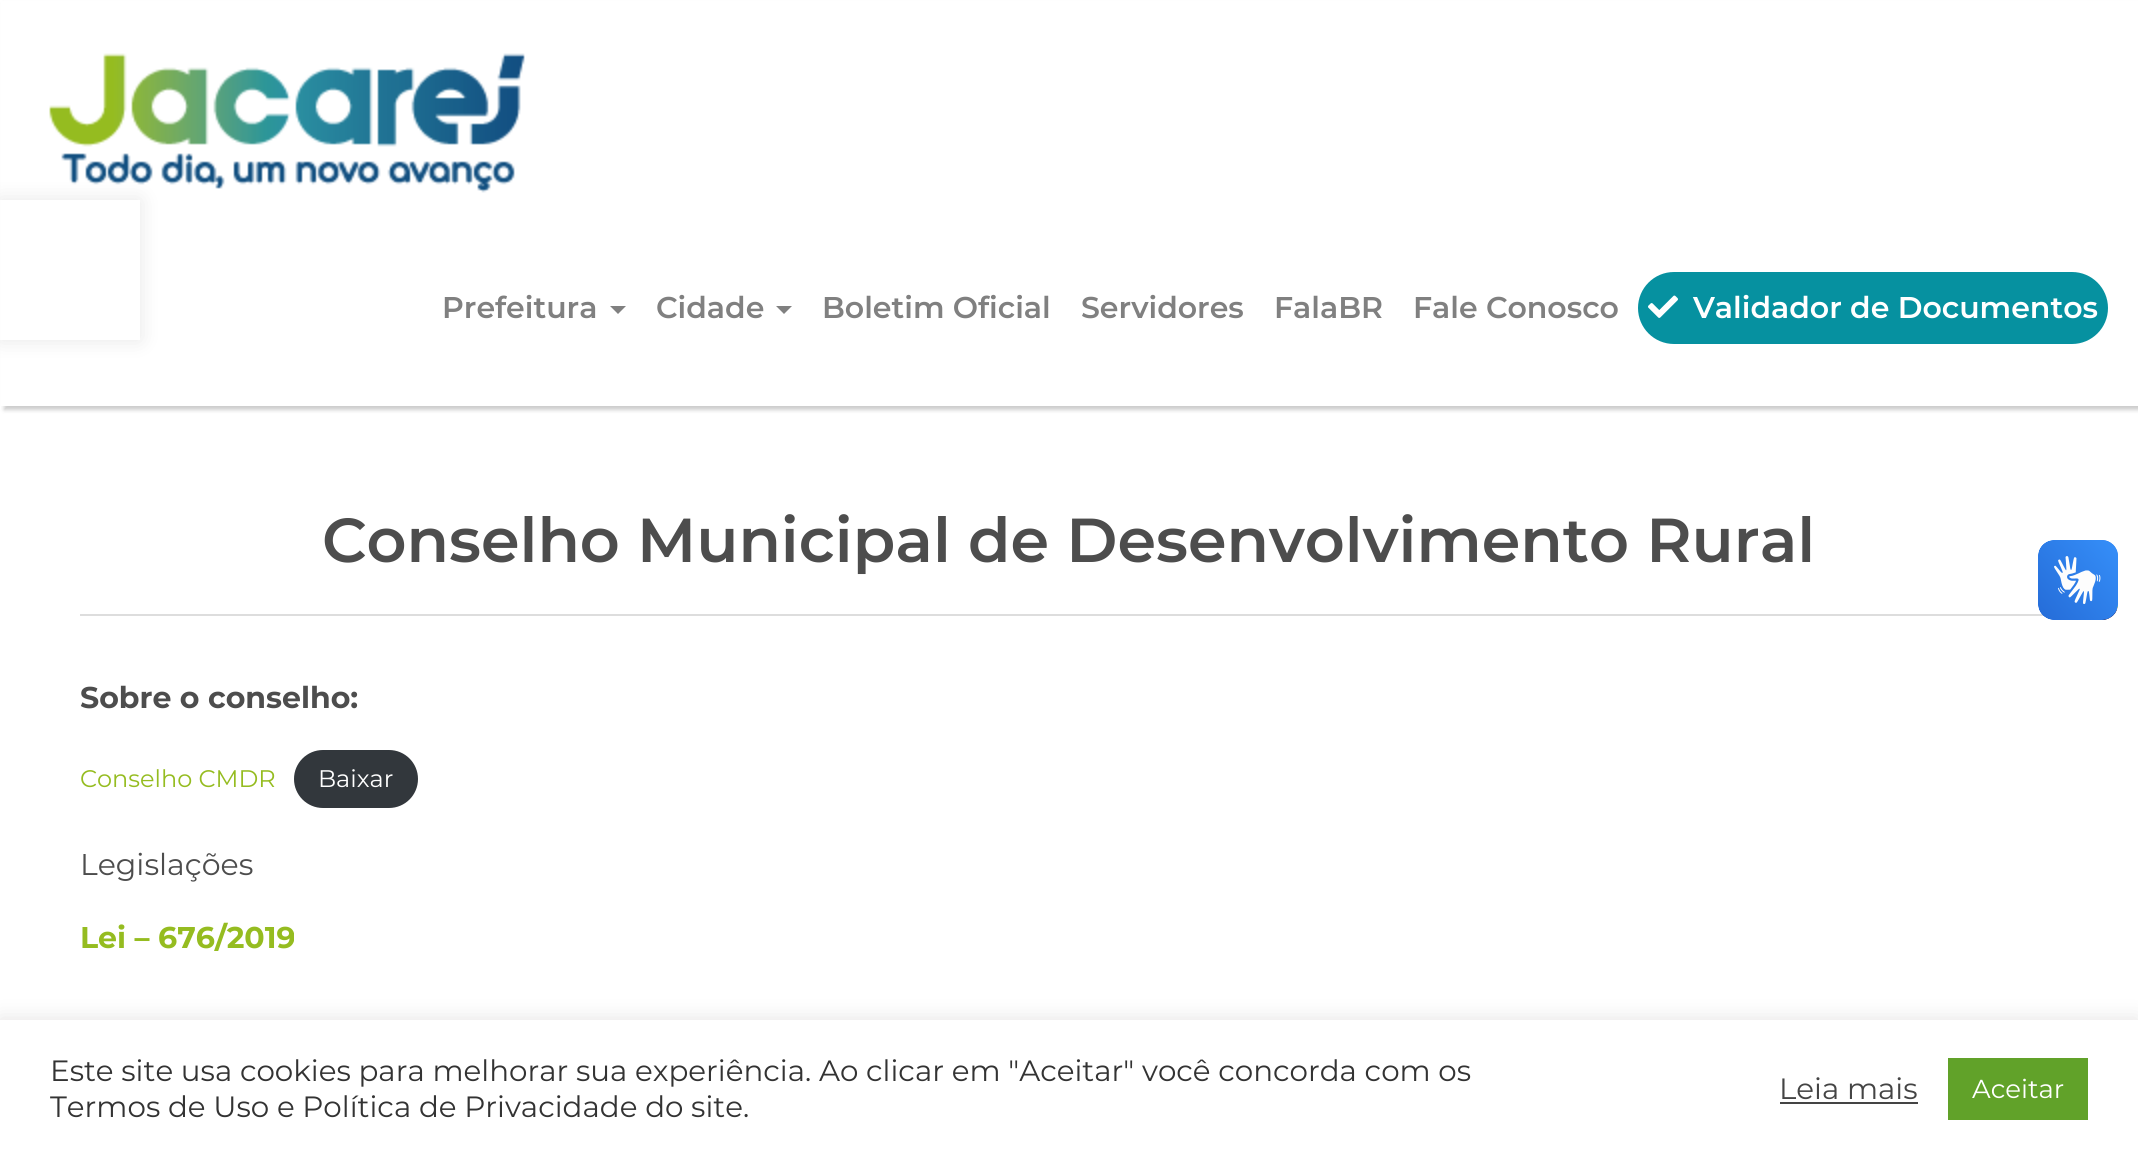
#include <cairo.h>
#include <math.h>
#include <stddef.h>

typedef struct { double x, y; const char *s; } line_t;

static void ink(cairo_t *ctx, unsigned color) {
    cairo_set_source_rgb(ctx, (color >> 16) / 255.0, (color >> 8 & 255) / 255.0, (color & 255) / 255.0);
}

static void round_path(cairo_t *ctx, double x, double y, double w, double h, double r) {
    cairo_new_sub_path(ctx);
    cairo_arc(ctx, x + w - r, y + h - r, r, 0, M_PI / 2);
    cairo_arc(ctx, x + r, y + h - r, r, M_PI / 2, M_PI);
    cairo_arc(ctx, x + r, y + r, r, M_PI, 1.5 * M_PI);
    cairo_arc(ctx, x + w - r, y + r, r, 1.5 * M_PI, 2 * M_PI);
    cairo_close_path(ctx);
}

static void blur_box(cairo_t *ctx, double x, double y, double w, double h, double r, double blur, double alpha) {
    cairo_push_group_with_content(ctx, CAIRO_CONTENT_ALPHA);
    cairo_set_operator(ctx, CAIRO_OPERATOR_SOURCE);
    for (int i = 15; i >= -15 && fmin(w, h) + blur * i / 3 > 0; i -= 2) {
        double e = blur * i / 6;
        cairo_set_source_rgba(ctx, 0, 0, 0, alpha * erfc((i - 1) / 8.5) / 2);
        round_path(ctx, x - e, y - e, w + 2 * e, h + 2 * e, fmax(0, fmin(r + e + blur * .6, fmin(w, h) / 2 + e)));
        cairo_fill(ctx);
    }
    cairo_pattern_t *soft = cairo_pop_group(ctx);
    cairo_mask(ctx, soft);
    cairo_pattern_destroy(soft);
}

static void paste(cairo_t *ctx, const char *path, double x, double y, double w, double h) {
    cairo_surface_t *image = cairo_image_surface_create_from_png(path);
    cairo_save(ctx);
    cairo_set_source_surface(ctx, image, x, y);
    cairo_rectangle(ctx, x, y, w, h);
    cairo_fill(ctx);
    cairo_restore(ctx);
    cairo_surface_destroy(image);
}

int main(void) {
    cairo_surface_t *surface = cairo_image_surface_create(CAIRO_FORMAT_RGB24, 2138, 1158);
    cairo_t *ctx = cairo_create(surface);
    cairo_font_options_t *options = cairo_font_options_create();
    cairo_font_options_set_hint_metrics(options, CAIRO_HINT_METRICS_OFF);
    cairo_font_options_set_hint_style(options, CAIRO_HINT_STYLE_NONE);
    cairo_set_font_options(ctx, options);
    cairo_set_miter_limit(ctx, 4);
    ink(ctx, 0xFFFFFF);
    cairo_paint(ctx);
    ink(ctx, 0x000000);
    blur_box(ctx, 4, 4, 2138, 406, 0, 2, 0.2);
    ink(ctx, 0xFFFFFF);
    cairo_rectangle(ctx, 1, 1, 2137, 405);
    cairo_fill(ctx);
    paste(ctx, "media/1.png", 49, 53, 476, 140);
    cairo_save(ctx);
    cairo_set_fill_rule(ctx, CAIRO_FILL_RULE_EVEN_ODD);
    cairo_new_path(ctx);
    cairo_move_to(ctx, 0, 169);
    cairo_line_to(ctx, 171, 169);
    cairo_line_to(ctx, 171, 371);
    cairo_line_to(ctx, 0, 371);
    cairo_close_path(ctx);
    cairo_move_to(ctx, 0, 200);
    cairo_line_to(ctx, 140, 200);
    cairo_line_to(ctx, 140, 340);
    cairo_line_to(ctx, 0, 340);
    cairo_close_path(ctx);
    cairo_clip(ctx);
    ink(ctx, 0x000000);
    blur_box(ctx, 0, 200, 140, 140, 0, 10, 0.1);
    cairo_restore(ctx);
    cairo_select_font_face(ctx, "Montserrat SemiBold", CAIRO_FONT_SLANT_NORMAL, CAIRO_FONT_WEIGHT_NORMAL);
    cairo_set_font_size(ctx, 30);
    ink(ctx, 0x808080);
    cairo_move_to(ctx, 442, 318);
    cairo_show_text(ctx, "Prefeitura");
    cairo_new_path(ctx);
    cairo_move_to(ctx, 610, 306);
    cairo_line_to(ctx, 626, 306);
    cairo_line_to(ctx, 618, 314);
    cairo_close_path(ctx);
    cairo_fill(ctx);
    cairo_move_to(ctx, 656, 318);
    cairo_show_text(ctx, "Cidade");
    cairo_new_path(ctx);
    cairo_move_to(ctx, 776, 306);
    cairo_line_to(ctx, 792, 306);
    cairo_line_to(ctx, 784, 314);
    cairo_close_path(ctx);
    cairo_fill(ctx);
    {
        static const line_t items[] = {
            {822, 318, "Boletim Oficial"},
            {1081, 318, "Servidores"},
            {1274, 318, "FalaBR"},
            {1413, 318, "Fale Conosco"},
        };
        for (size_t i = 0; i < sizeof items / sizeof *items; i++) {
            cairo_move_to(ctx, items[i].x, items[i].y);
            cairo_show_text(ctx, items[i].s);
        }
    }
    ink(ctx, 0x0691A0);
    round_path(ctx, 1638, 272, 470, 72, 36);
    cairo_fill(ctx);
    paste(ctx, "media/2.png", 1648, 295, 30, 23);
    ink(ctx, 0xFFFFFF);
    cairo_move_to(ctx, 1693, 318);
    cairo_show_text(ctx, "Validador de Documentos");
    ink(ctx, 0xDDDDDD);
    cairo_rectangle(ctx, 80, 614, 1964, 2);
    cairo_fill(ctx);
    cairo_set_font_size(ctx, 62);
    ink(ctx, 0x4D4D4D);
    cairo_move_to(ctx, 322, 562);
    cairo_show_text(ctx, "Conselho Municipal de Desenvolvimento Rural");
    cairo_select_font_face(ctx, "Montserrat", CAIRO_FONT_SLANT_NORMAL, CAIRO_FONT_WEIGHT_BOLD);
    cairo_set_font_size(ctx, 30);
    cairo_move_to(ctx, 80, 708);
    cairo_show_text(ctx, "Sobre o conselho:");
    cairo_select_font_face(ctx, "Montserrat", CAIRO_FONT_SLANT_NORMAL, CAIRO_FONT_WEIGHT_NORMAL);
    cairo_set_font_size(ctx, 24);
    ink(ctx, 0x95BC20);
    cairo_move_to(ctx, 80, 787);
    cairo_show_text(ctx, "Conselho CMDR");
    ink(ctx, 0x32373C);
    round_path(ctx, 294, 750, 124, 58, 29);
    cairo_fill(ctx);
    ink(ctx, 0xFFFFFF);
    cairo_move_to(ctx, 318, 787);
    cairo_show_text(ctx, "Baixar");
    cairo_set_font_size(ctx, 30);
    ink(ctx, 0x4D4D4D);
    cairo_move_to(ctx, 80, 875);
    cairo_show_text(ctx, "Legislações");
    cairo_select_font_face(ctx, "Montserrat", CAIRO_FONT_SLANT_NORMAL, CAIRO_FONT_WEIGHT_BOLD);
    ink(ctx, 0x95BC20);
    cairo_move_to(ctx, 80, 948);
    cairo_show_text(ctx, "Lei – 676/2019");
    paste(ctx, "media/3.png", 2038, 540, 80, 80);
    paste(ctx, "media/4.png", 2038, 540, 80, 80);
    ink(ctx, 0xACABAB);
    blur_box(ctx, 0, 1018, 2138, 138, 0, 10, 0.3);
    ink(ctx, 0xFFFFFF);
    cairo_rectangle(ctx, 0, 1020, 2138, 138);
    cairo_fill(ctx);
    cairo_select_font_face(ctx, "Montserrat", CAIRO_FONT_SLANT_NORMAL, CAIRO_FONT_WEIGHT_NORMAL);
    cairo_set_font_size(ctx, 29.35);
    ink(ctx, 0x333333);
    cairo_move_to(ctx, 50, 1081);
    cairo_show_text(ctx, "Este site usa cookies para melhorar sua experiência. Ao clicar em \"Aceitar\" você concorda com os");
    cairo_move_to(ctx, 50, 1117);
    cairo_show_text(ctx, "Termos de Uso e Política de Privacidade do site.");
    ink(ctx, 0x444444);
    cairo_move_to(ctx, 1779, 1099);
    cairo_show_text(ctx, "Leia mais");
    cairo_rectangle(ctx, 1780, 1102, 138, 2);
    cairo_fill(ctx);
    ink(ctx, 0x61A229);
    cairo_rectangle(ctx, 1948, 1058, 140, 62);
    cairo_fill(ctx);
    cairo_set_font_size(ctx, 26);
    ink(ctx, 0xFFFFFF);
    cairo_move_to(ctx, 1972, 1098);
    cairo_show_text(ctx, "Aceitar");
    cairo_surface_write_to_png(surface, "image.png");
    cairo_font_options_destroy(options);
    cairo_destroy(ctx);
    cairo_surface_destroy(surface);
    return 0;
}
